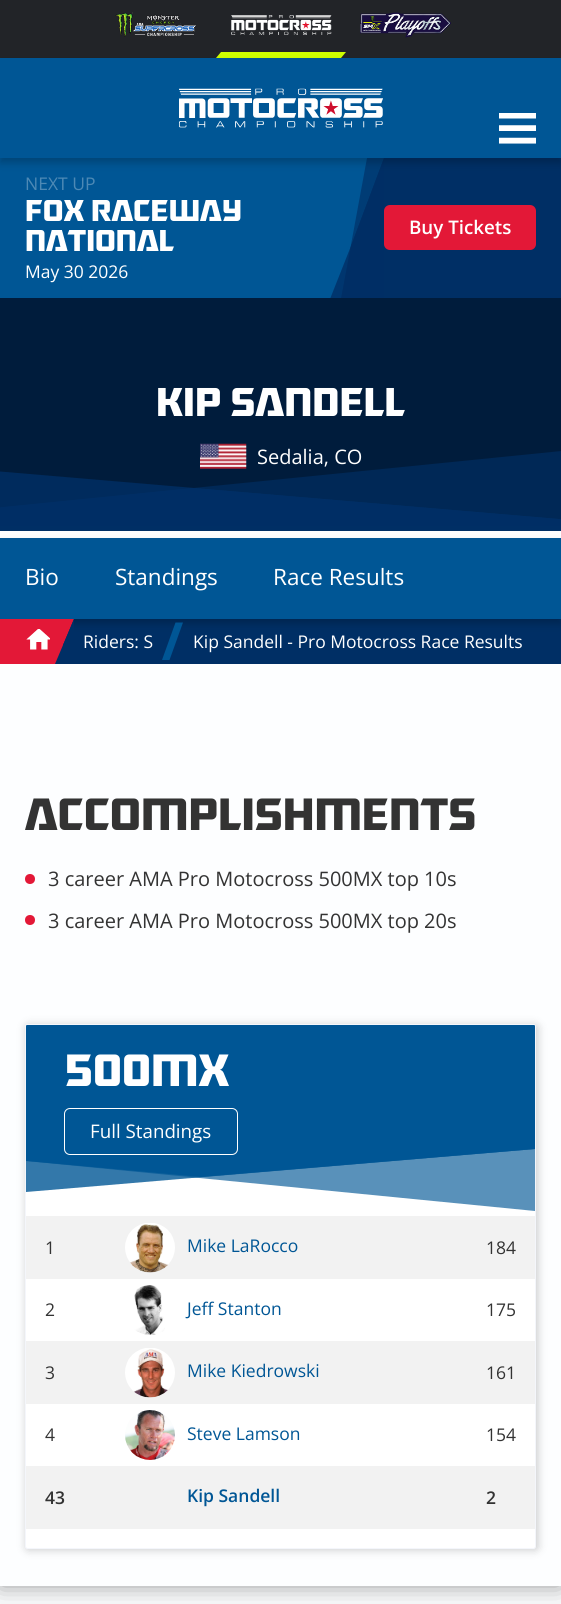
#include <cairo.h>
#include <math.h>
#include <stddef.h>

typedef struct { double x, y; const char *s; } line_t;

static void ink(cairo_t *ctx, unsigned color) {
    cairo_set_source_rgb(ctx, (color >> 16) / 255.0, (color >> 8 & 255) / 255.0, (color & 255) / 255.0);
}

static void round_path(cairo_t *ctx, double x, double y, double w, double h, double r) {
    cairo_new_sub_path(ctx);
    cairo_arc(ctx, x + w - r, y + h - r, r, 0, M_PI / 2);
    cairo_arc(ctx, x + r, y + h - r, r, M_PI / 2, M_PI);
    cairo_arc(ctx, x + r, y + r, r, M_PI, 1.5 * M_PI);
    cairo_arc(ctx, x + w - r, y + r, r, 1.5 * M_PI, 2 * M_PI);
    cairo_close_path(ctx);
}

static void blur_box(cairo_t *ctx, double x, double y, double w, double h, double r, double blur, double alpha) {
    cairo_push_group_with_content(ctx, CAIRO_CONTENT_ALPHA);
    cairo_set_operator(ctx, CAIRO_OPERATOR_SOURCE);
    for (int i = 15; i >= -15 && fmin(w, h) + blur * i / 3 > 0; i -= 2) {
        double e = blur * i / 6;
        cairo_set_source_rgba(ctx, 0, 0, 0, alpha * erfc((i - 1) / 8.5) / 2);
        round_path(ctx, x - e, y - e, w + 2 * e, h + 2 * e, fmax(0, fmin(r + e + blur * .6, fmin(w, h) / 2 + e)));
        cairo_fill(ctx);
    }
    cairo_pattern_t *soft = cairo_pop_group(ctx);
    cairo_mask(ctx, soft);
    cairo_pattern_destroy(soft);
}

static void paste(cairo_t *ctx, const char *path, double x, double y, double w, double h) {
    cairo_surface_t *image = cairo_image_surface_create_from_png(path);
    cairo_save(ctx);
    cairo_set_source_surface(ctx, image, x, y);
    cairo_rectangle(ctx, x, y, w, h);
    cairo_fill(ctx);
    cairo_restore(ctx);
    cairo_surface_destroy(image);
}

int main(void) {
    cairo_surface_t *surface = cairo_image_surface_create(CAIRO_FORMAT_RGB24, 561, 1604);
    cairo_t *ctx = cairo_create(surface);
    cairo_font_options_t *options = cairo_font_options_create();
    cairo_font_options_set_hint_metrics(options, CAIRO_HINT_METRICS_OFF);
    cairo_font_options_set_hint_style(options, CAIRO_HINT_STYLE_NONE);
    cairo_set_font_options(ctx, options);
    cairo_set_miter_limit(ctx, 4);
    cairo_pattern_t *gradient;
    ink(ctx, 0xFDFEFF);
    cairo_paint(ctx);
    cairo_save(ctx);
    cairo_rectangle(ctx, 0, 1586, 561, 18);
    cairo_clip(ctx);
    ink(ctx, 0x000000);
    blur_box(ctx, 0, 0, 561, 1586, 0, 12.5, 0.4);
    cairo_restore(ctx);
    ink(ctx, 0x222428);
    cairo_rectangle(ctx, 0, 0, 561, 58);
    cairo_fill(ctx);
    paste(ctx, "media/1.png", 115, 12, 81, 25);
    paste(ctx, "media/2.png", 231, 15, 101, 20);
    ink(ctx, 0xCEFF00);
    cairo_new_path(ctx);
    cairo_move_to(ctx, 221, 52);
    cairo_line_to(ctx, 346, 52);
    cairo_line_to(ctx, 341, 58);
    cairo_line_to(ctx, 216, 58);
    cairo_close_path(ctx);
    cairo_fill(ctx);
    paste(ctx, "media/3.png", 360, 12, 91, 26);
    ink(ctx, 0x005695);
    cairo_rectangle(ctx, 0, 58, 561, 240);
    cairo_fill(ctx);
    ink(ctx, 0x002F65);
    cairo_rectangle(ctx, 384, 158, 177, 140);
    cairo_fill(ctx);
    cairo_save(ctx);
    cairo_rectangle(ctx, 330, 158, 55, 140);
    cairo_clip(ctx);
    cairo_new_path(ctx);
    cairo_move_to(ctx, 384, 299);
    cairo_line_to(ctx, 384, 158);
    cairo_line_to(ctx, 351, 246);
    cairo_line_to(ctx, 341, 299);
    cairo_close_path(ctx);
    cairo_fill(ctx);
    cairo_set_source_rgba(ctx, 0, 0.184, 0.396, 0.65);
    cairo_new_path(ctx);
    cairo_move_to(ctx, 367, 158);
    cairo_line_to(ctx, 341, 299);
    cairo_line_to(ctx, 384, 299);
    cairo_line_to(ctx, 384, 158);
    cairo_close_path(ctx);
    cairo_fill(ctx);
    cairo_set_source_rgba(ctx, 0, 0.184, 0.396, 0.8);
    cairo_new_path(ctx);
    cairo_move_to(ctx, 351, 246);
    cairo_line_to(ctx, 330, 299);
    cairo_line_to(ctx, 384, 299);
    cairo_line_to(ctx, 384, 158);
    cairo_close_path(ctx);
    cairo_fill(ctx);
    cairo_restore(ctx);
    cairo_save(ctx);
    cairo_set_fill_rule(ctx, CAIRO_FILL_RULE_EVEN_ODD);
    cairo_new_path(ctx);
    cairo_move_to(ctx, 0, 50);
    cairo_line_to(ctx, 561, 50);
    cairo_line_to(ctx, 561, 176);
    cairo_line_to(ctx, 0, 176);
    cairo_close_path(ctx);
    cairo_move_to(ctx, 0, 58);
    cairo_line_to(ctx, 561, 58);
    cairo_line_to(ctx, 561, 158);
    cairo_line_to(ctx, 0, 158);
    cairo_close_path(ctx);
    cairo_clip(ctx);
    ink(ctx, 0x000000);
    blur_box(ctx, 0, 63, 561, 100, 0, 4, 0.2);
    cairo_restore(ctx);
    paste(ctx, "media/4.png", 499, 113, 37, 31);
    paste(ctx, "media/5.png", 179, 88, 204, 40);
    cairo_select_font_face(ctx, "Open Sans", CAIRO_FONT_SLANT_NORMAL, CAIRO_FONT_WEIGHT_NORMAL);
    cairo_set_font_size(ctx, 17.5);
    ink(ctx, 0x4D89B5);
    cairo_move_to(ctx, 25, 190);
    cairo_show_text(ctx, "NEXT UP");
    cairo_select_font_face(ctx, "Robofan", CAIRO_FONT_SLANT_NORMAL, CAIRO_FONT_WEIGHT_BOLD);
    cairo_set_font_size(ctx, 30);
    ink(ctx, 0xFFFFFF);
    cairo_move_to(ctx, 25, 221);
    cairo_show_text(ctx, "FOX RACEWAY");
    cairo_move_to(ctx, 25, 251);
    cairo_show_text(ctx, "NATIONAL");
    cairo_select_font_face(ctx, "Open Sans", CAIRO_FONT_SLANT_NORMAL, CAIRO_FONT_WEIGHT_NORMAL);
    cairo_set_font_size(ctx, 17.5);
    cairo_move_to(ctx, 25, 278);
    cairo_show_text(ctx, "May 30 2026");
    ink(ctx, 0xE31837);
    round_path(ctx, 384, 205, 152, 45, 6);
    cairo_fill(ctx);
    cairo_select_font_face(ctx, "Open Sans SemiBold", CAIRO_FONT_SLANT_NORMAL, CAIRO_FONT_WEIGHT_NORMAL);
    cairo_set_font_size(ctx, 18.75);
    ink(ctx, 0xFFFFFF);
    cairo_move_to(ctx, 409, 234);
    cairo_show_text(ctx, "Buy Tickets");
    ink(ctx, 0x001C3C);
    cairo_rectangle(ctx, 0, 298, 561, 222);
    cairo_fill(ctx);
    cairo_select_font_face(ctx, "Robofan", CAIRO_FONT_SLANT_NORMAL, CAIRO_FONT_WEIGHT_BOLD);
    cairo_set_font_size(ctx, 40);
    ink(ctx, 0xFFFFFF);
    cairo_move_to(ctx, 156, 416);
    cairo_show_text(ctx, "KIP SANDELL");
    ink(ctx, 0x002F65);
    cairo_new_path(ctx);
    cairo_move_to(ctx, 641, 526);
    cairo_line_to(ctx, 193, 488);
    cairo_line_to(ctx, -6, 508);
    cairo_line_to(ctx, -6, 526);
    cairo_close_path(ctx);
    cairo_fill(ctx);
    cairo_set_source_rgba(ctx, 0, 0.184, 0.396, 0.65);
    cairo_new_path(ctx);
    cairo_move_to(ctx, 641, 443);
    cairo_line_to(ctx, -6, 508);
    cairo_line_to(ctx, -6, 526);
    cairo_line_to(ctx, 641, 526);
    cairo_close_path(ctx);
    cairo_fill(ctx);
    paste(ctx, "media/6.png", 200, 443, 47, 26);
    cairo_select_font_face(ctx, "Open Sans", CAIRO_FONT_SLANT_NORMAL, CAIRO_FONT_WEIGHT_NORMAL);
    cairo_set_font_size(ctx, 20);
    ink(ctx, 0xFFFFFF);
    cairo_move_to(ctx, 257, 464);
    cairo_show_text(ctx, "Sedalia, CO");
    ink(ctx, 0x005695);
    cairo_rectangle(ctx, 0, 538, 561, 81);
    cairo_fill(ctx);
    ink(ctx, 0x002F65);
    cairo_rectangle(ctx, 63, 619, 498, 45);
    cairo_fill(ctx);
    cairo_save(ctx);
    cairo_set_fill_rule(ctx, CAIRO_FILL_RULE_EVEN_ODD);
    cairo_new_path(ctx);
    cairo_move_to(ctx, 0, 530);
    cairo_line_to(ctx, 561, 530);
    cairo_line_to(ctx, 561, 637);
    cairo_line_to(ctx, 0, 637);
    cairo_close_path(ctx);
    cairo_move_to(ctx, 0, 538);
    cairo_line_to(ctx, 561, 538);
    cairo_line_to(ctx, 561, 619);
    cairo_line_to(ctx, 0, 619);
    cairo_close_path(ctx);
    cairo_clip(ctx);
    ink(ctx, 0x000000);
    blur_box(ctx, 0, 543, 561, 81, 0, 4, 0.2);
    cairo_restore(ctx);
    cairo_rectangle(ctx, 0, 526, 561, 5);
    cairo_fill(ctx);
    cairo_set_source_rgba(ctx, 0, 0.184, 0.396, 0.8);
    cairo_new_path(ctx);
    cairo_move_to(ctx, -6, 471);
    cairo_line_to(ctx, -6, 526);
    cairo_line_to(ctx, 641, 526);
    cairo_close_path(ctx);
    cairo_fill(ctx);
    cairo_set_font_size(ctx, 22.5);
    ink(ctx, 0xFFFFFF);
    {
        static const line_t items[] = {
            {25, 585, "Bio"},
            {115, 585, "Standings"},
            {273, 585, "Race Results"},
        };
        for (size_t i = 0; i < sizeof items / sizeof *items; i++) {
            cairo_move_to(ctx, items[i].x, items[i].y);
            cairo_show_text(ctx, items[i].s);
        }
    }
    gradient = cairo_pattern_create_linear(499, 578, 561, 578);
    cairo_pattern_add_color_stop_rgba(gradient, 0, 0, 0.337, 0.584, 0);
    cairo_pattern_add_color_stop_rgba(gradient, 1, 0, 0.337, 0.584, 1);
    cairo_set_source(ctx, gradient);
    cairo_pattern_destroy(gradient);
    cairo_rectangle(ctx, 520, 618, 41, 1);
    cairo_fill(ctx);
    ink(ctx, 0xE31837);
    cairo_rectangle(ctx, 0, 619, 63, 45);
    cairo_fill(ctx);
    cairo_new_path(ctx);
    cairo_move_to(ctx, 55, 619);
    cairo_line_to(ctx, 74, 619);
    cairo_line_to(ctx, 55, 664);
    cairo_close_path(ctx);
    cairo_fill(ctx);
    ink(ctx, 0x002F65);
    cairo_new_path(ctx);
    cairo_move_to(ctx, 74, 619);
    cairo_line_to(ctx, 74, 664);
    cairo_line_to(ctx, 55, 664);
    cairo_close_path(ctx);
    cairo_fill(ctx);
    paste(ctx, "media/7.png", 26, 629, 24, 21);
    cairo_set_font_size(ctx, 17.5);
    ink(ctx, 0xFFFFFF);
    cairo_move_to(ctx, 83, 648);
    cairo_show_text(ctx, "Riders: S");
    ink(ctx, 0x005695);
    cairo_new_path(ctx);
    cairo_move_to(ctx, 175.5, 622.5);
    cairo_line_to(ctx, 183, 622.5);
    cairo_line_to(ctx, 169.5, 660);
    cairo_line_to(ctx, 162, 660);
    cairo_close_path(ctx);
    cairo_fill(ctx);
    ink(ctx, 0xFFFFFF);
    cairo_move_to(ctx, 193, 648);
    cairo_show_text(ctx, "Kip Sandell - Pro Motocross Race Results");
    cairo_select_font_face(ctx, "Robofan", CAIRO_FONT_SLANT_NORMAL, CAIRO_FONT_WEIGHT_BOLD);
    cairo_set_font_size(ctx, 45);
    ink(ctx, 0x333333);
    cairo_move_to(ctx, 25, 830);
    cairo_show_text(ctx, "ACCOMPLISHMENTS");
    ink(ctx, 0xE31837);
    cairo_new_path(ctx);
    cairo_arc(ctx, 30, 879, 5, 0, 2 * M_PI);
    cairo_fill(ctx);
    cairo_select_font_face(ctx, "Open Sans", CAIRO_FONT_SLANT_NORMAL, CAIRO_FONT_WEIGHT_NORMAL);
    cairo_set_font_size(ctx, 20);
    ink(ctx, 0x333333);
    cairo_move_to(ctx, 48, 886);
    cairo_show_text(ctx, "3 career AMA Pro Motocross 500MX top 10s");
    ink(ctx, 0xE31837);
    cairo_new_path(ctx);
    cairo_arc(ctx, 30, 920, 5, 0, 2 * M_PI);
    cairo_fill(ctx);
    ink(ctx, 0x333333);
    cairo_move_to(ctx, 48, 928);
    cairo_show_text(ctx, "3 career AMA Pro Motocross 500MX top 20s");
    ink(ctx, 0x000000);
    blur_box(ctx, 26, 1025, 512, 525, 2.5, 4.5, 0.2);
    ink(ctx, 0xFFFFFF);
    round_path(ctx, 25.5, 1024.5, 510, 524, 2);
    cairo_fill_preserve(ctx);
    ink(ctx, 0xF4F6FB);
    cairo_set_line_width(ctx, 1);
    cairo_stroke(ctx);
    ink(ctx, 0x005695);
    cairo_new_path(ctx);
    cairo_move_to(ctx, 27, 1025);
    cairo_line_to(ctx, 534, 1025);
    cairo_curve_to(ctx, 534.5, 1025, 535, 1025.5, 535, 1026);
    cairo_line_to(ctx, 535, 1145);
    cairo_line_to(ctx, 26, 1145);
    cairo_line_to(ctx, 26, 1026);
    cairo_curve_to(ctx, 26, 1025.5, 26.5, 1025, 27, 1025);
    cairo_close_path(ctx);
    cairo_fill(ctx);
    cairo_select_font_face(ctx, "Robofan", CAIRO_FONT_SLANT_NORMAL, CAIRO_FONT_WEIGHT_BOLD);
    cairo_set_font_size(ctx, 45);
    ink(ctx, 0xFFFFFF);
    cairo_move_to(ctx, 64, 1086);
    cairo_show_text(ctx, "500MX");
    cairo_save(ctx);
    cairo_rectangle(ctx, 20, 1144, 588, 76);
    cairo_clip(ctx);
    ink(ctx, 0x005695);
    cairo_new_path(ctx);
    cairo_move_to(ctx, 26, 1161);
    cairo_line_to(ctx, 26, 1143);
    cairo_line_to(ctx, 535, 1143);
    cairo_line_to(ctx, 535, 1149);
    cairo_line_to(ctx, 201, 1177);
    cairo_close_path(ctx);
    cairo_fill(ctx);
    cairo_set_source_rgba(ctx, 0, 0.337, 0.584, 0.65);
    cairo_new_path(ctx);
    cairo_move_to(ctx, 26, 1161);
    cairo_line_to(ctx, 26, 1143);
    cairo_line_to(ctx, 535, 1143);
    cairo_line_to(ctx, 535, 1211);
    cairo_close_path(ctx);
    cairo_fill(ctx);
    cairo_set_source_rgba(ctx, 0, 0.337, 0.584, 0.8);
    cairo_new_path(ctx);
    cairo_move_to(ctx, 26, 1192);
    cairo_line_to(ctx, 26, 1143);
    cairo_line_to(ctx, 535, 1143);
    cairo_line_to(ctx, 535, 1149);
    cairo_close_path(ctx);
    cairo_fill(ctx);
    cairo_restore(ctx);
    round_path(ctx, 64.5, 1108.5, 173, 46, 5.5);
    cairo_stroke(ctx);
    cairo_select_font_face(ctx, "Open Sans", CAIRO_FONT_SLANT_NORMAL, CAIRO_FONT_WEIGHT_NORMAL);
    cairo_set_font_size(ctx, 18.75);
    cairo_move_to(ctx, 90, 1138);
    cairo_show_text(ctx, "Full Standings");
    ink(ctx, 0xF2F2F2);
    cairo_rectangle(ctx, 26, 1216, 509, 63);
    cairo_fill(ctx);
    cairo_set_font_size(ctx, 17.5);
    ink(ctx, 0x333333);
    cairo_move_to(ctx, 45, 1254);
    cairo_show_text(ctx, "1");
    paste(ctx, "media/8.png", 125, 1223, 50, 50);
    ink(ctx, 0x005695);
    cairo_move_to(ctx, 187, 1252);
    cairo_show_text(ctx, "Mike LaRocco");
    ink(ctx, 0x333333);
    cairo_move_to(ctx, 486, 1254);
    cairo_show_text(ctx, "184");
    cairo_move_to(ctx, 45, 1316);
    cairo_show_text(ctx, "2");
    paste(ctx, "media/9.png", 134, 1285, 31, 50);
    ink(ctx, 0x005695);
    cairo_move_to(ctx, 187, 1315);
    cairo_show_text(ctx, "Jeff Stanton");
    ink(ctx, 0x333333);
    cairo_move_to(ctx, 486, 1316);
    cairo_show_text(ctx, "175");
    ink(ctx, 0xF2F2F2);
    cairo_rectangle(ctx, 26, 1341, 509, 63);
    cairo_fill(ctx);
    ink(ctx, 0x333333);
    cairo_move_to(ctx, 45, 1379);
    cairo_show_text(ctx, "3");
    paste(ctx, "media/10.png", 125, 1348, 50, 50);
    ink(ctx, 0x005695);
    cairo_move_to(ctx, 187, 1377);
    cairo_show_text(ctx, "Mike Kiedrowski");
    ink(ctx, 0x333333);
    cairo_move_to(ctx, 486, 1379);
    cairo_show_text(ctx, "161");
    cairo_move_to(ctx, 45, 1441);
    cairo_show_text(ctx, "4");
    paste(ctx, "media/11.png", 125, 1410, 50, 50);
    ink(ctx, 0x005695);
    cairo_move_to(ctx, 187, 1440);
    cairo_show_text(ctx, "Steve Lamson");
    ink(ctx, 0x333333);
    cairo_move_to(ctx, 486, 1441);
    cairo_show_text(ctx, "154");
    ink(ctx, 0xF2F2F2);
    cairo_rectangle(ctx, 26, 1466, 509, 63);
    cairo_fill(ctx);
    cairo_select_font_face(ctx, "Open Sans SemiBold", CAIRO_FONT_SLANT_NORMAL, CAIRO_FONT_WEIGHT_NORMAL);
    ink(ctx, 0x333333);
    cairo_move_to(ctx, 45, 1504);
    cairo_show_text(ctx, "43");
    ink(ctx, 0x005695);
    cairo_move_to(ctx, 187, 1502);
    cairo_show_text(ctx, "Kip Sandell");
    ink(ctx, 0x333333);
    cairo_move_to(ctx, 486, 1504);
    cairo_show_text(ctx, "2");
    cairo_surface_write_to_png(surface, "image.png");
    cairo_font_options_destroy(options);
    cairo_destroy(ctx);
    cairo_surface_destroy(surface);
    return 0;
}
